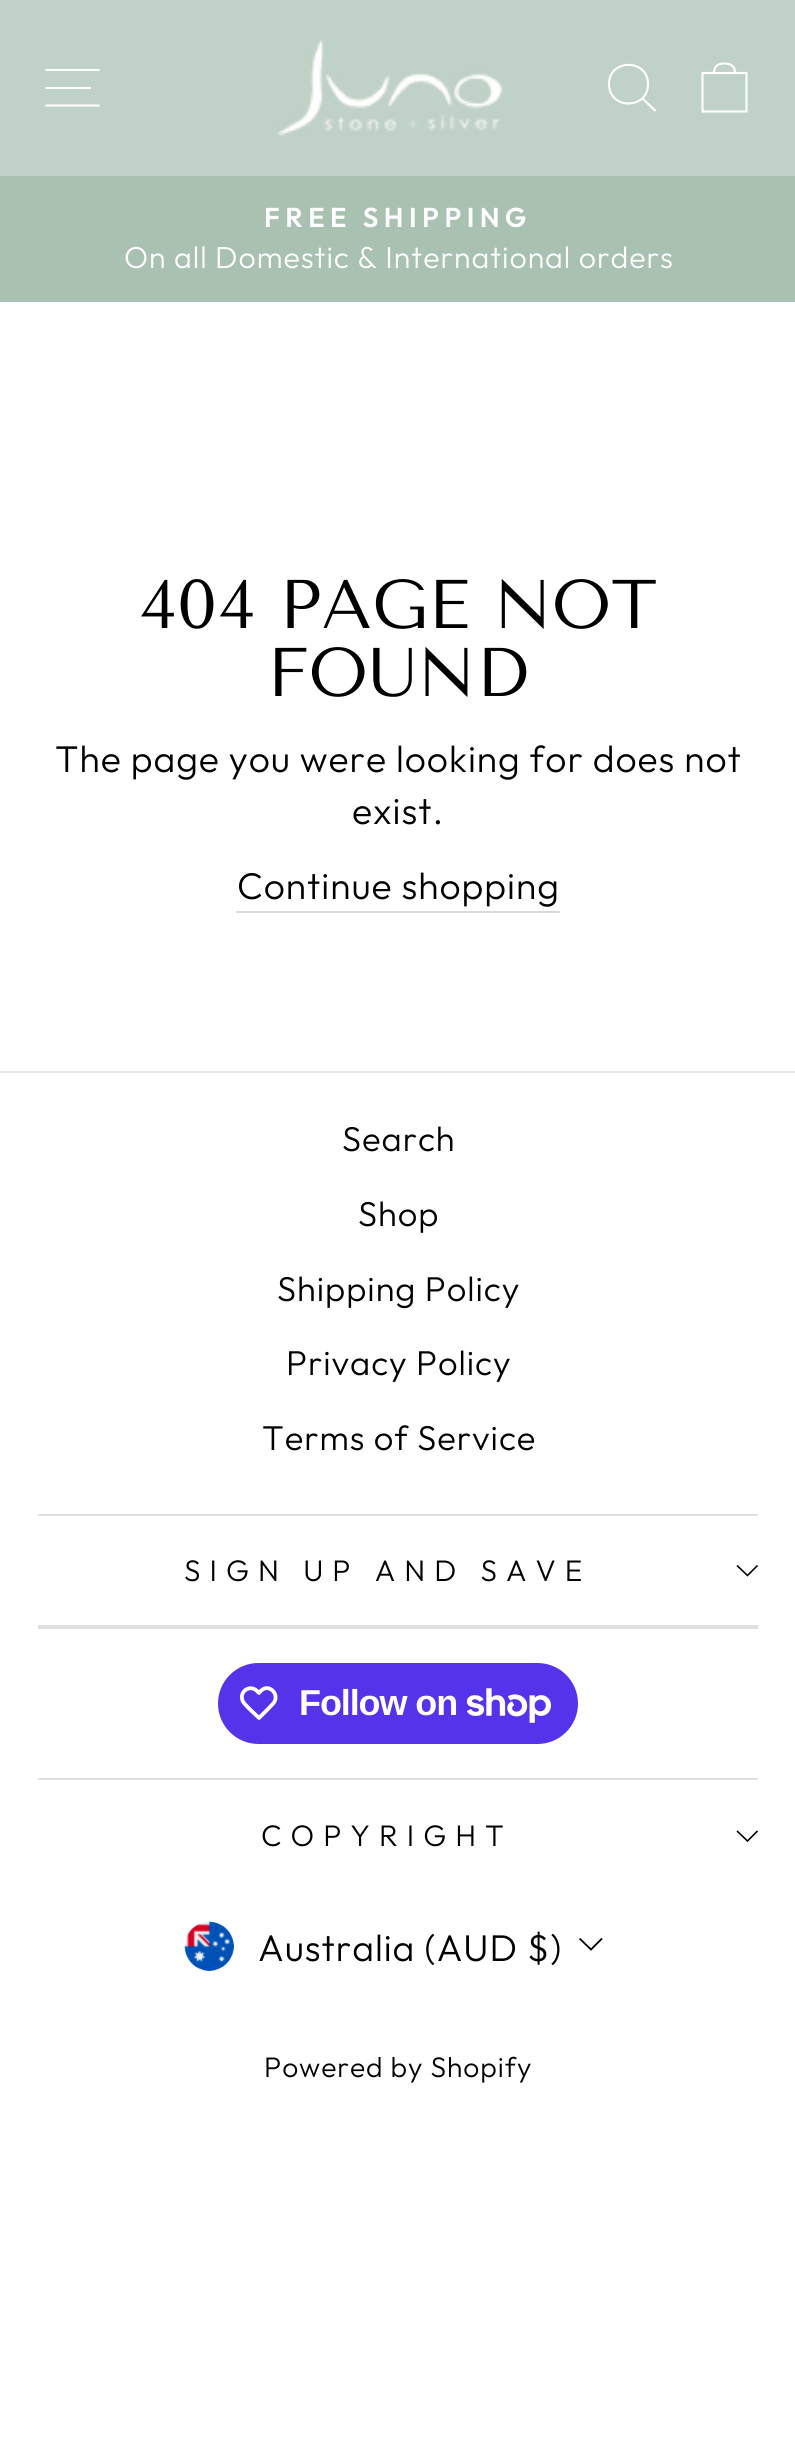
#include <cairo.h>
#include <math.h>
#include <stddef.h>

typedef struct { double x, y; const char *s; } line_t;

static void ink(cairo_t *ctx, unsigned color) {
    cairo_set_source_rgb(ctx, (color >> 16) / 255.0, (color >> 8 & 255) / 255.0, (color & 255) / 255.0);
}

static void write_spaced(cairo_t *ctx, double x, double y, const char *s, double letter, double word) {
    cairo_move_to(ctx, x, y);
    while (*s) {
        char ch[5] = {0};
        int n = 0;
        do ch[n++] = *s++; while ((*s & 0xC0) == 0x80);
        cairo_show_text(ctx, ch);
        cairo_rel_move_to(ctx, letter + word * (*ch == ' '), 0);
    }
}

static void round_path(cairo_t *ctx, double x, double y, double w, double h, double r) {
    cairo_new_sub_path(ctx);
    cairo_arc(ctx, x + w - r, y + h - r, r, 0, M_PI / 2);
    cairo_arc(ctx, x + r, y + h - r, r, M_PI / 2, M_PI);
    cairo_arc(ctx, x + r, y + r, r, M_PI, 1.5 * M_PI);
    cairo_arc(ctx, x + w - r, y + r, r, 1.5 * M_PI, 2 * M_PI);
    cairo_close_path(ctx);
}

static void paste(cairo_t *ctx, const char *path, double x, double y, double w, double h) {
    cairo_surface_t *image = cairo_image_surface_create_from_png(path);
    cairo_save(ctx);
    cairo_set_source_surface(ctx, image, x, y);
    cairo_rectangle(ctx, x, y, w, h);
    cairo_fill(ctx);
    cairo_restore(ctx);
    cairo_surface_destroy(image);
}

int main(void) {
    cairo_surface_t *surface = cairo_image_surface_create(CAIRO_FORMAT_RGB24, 795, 2447);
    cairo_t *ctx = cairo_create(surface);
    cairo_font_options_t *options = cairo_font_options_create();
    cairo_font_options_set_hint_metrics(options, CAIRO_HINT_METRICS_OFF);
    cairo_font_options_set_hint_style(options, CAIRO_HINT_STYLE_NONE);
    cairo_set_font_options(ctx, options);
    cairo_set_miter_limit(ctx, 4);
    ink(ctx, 0xFFFFFF);
    cairo_paint(ctx);
    ink(ctx, 0xC0D1C7);
    cairo_rectangle(ctx, 0, 0, 795, 176);
    cairo_fill(ctx);
    cairo_new_path(ctx);
    cairo_move_to(ctx, 45.5, 70);
    cairo_line_to(ctx, 99.5, 70);
    cairo_move_to(ctx, 45.5, 88);
    cairo_line_to(ctx, 91, 88);
    cairo_move_to(ctx, 45.5, 105.5);
    cairo_line_to(ctx, 99.5, 105.5);
    ink(ctx, 0xFFFFFF);
    cairo_set_line_width(ctx, 2.1);
    cairo_stroke(ctx);
    paste(ctx, "media/1.png", 277, 40, 226, 96);
    cairo_new_path(ctx);
    cairo_move_to(ctx, 648, 84);
    cairo_curve_to(ctx, 648, 110, 609, 110, 609, 84);
    cairo_curve_to(ctx, 609, 58.5, 648, 58.5, 648, 84);
    cairo_close_path(ctx);
    cairo_move_to(ctx, 655.5, 111);
    cairo_line_to(ctx, 642.5, 98.5);
    cairo_stroke(ctx);
    cairo_new_path(ctx);
    cairo_move_to(ctx, 702.5, 73);
    cairo_line_to(ctx, 746.5, 73);
    cairo_line_to(ctx, 746.5, 111.5);
    cairo_line_to(ctx, 702.5, 111.5);
    cairo_close_path(ctx);
    cairo_move_to(ctx, 714, 73);
    cairo_curve_to(ctx, 714, 65.5, 719, 63.5, 724.5, 63.5);
    cairo_curve_to(ctx, 730, 63.5, 735, 65.5, 735, 73);
    cairo_stroke(ctx);
    ink(ctx, 0xA8C1B1);
    cairo_rectangle(ctx, 0, 176, 795, 126);
    cairo_fill(ctx);
    cairo_select_font_face(ctx, "Outfit SemiBold", CAIRO_FONT_SLANT_NORMAL, CAIRO_FONT_WEIGHT_NORMAL);
    cairo_set_font_size(ctx, 27.25);
    ink(ctx, 0xFFFFFF);
    write_spaced(ctx, 264, 227, "FREE SHIPPING", 5.5, 0);
    cairo_select_font_face(ctx, "Outfit Light", CAIRO_FONT_SLANT_NORMAL, CAIRO_FONT_WEIGHT_NORMAL);
    cairo_set_font_size(ctx, 30.4);
    write_spaced(ctx, 124, 268, "On all Domestic & International orders", 0.95, 0);
    cairo_select_font_face(ctx, "Tenor Sans", CAIRO_FONT_SLANT_NORMAL, CAIRO_FONT_WEIGHT_NORMAL);
    cairo_set_font_size(ctx, 68.75);
    ink(ctx, 0x000000);
    cairo_move_to(ctx, 139, 628);
    cairo_show_text(ctx, "404 PAGE NOT");
    cairo_move_to(ctx, 267, 696);
    cairo_show_text(ctx, "FOUND");
    cairo_select_font_face(ctx, "Outfit Light", CAIRO_FONT_SLANT_NORMAL, CAIRO_FONT_WEIGHT_NORMAL);
    cairo_set_font_size(ctx, 37.25);
    write_spaced(ctx, 55, 772, "The page you were looking for does not", 0.95, 0);
    write_spaced(ctx, 352, 824, "exist.", 0.95, 0);
    ink(ctx, 0xD9D9D9);
    cairo_rectangle(ctx, 236, 911, 324, 2);
    cairo_fill(ctx);
    ink(ctx, 0x000000);
    write_spaced(ctx, 237, 899, "Continue shopping", 0.95, 0);
    ink(ctx, 0xE8E8E1);
    cairo_rectangle(ctx, 0, 1071, 795, 2);
    cairo_fill(ctx);
    cairo_set_font_size(ctx, 34.5);
    ink(ctx, 0x000000);
    {
        static const line_t items[] = {
            {342, 1151, "Search"},
            {358, 1226, "Shop"},
            {277, 1301, "Shipping Policy"},
            {286, 1375, "Privacy Policy"},
            {262, 1450, "Terms of Service"},
        };
        for (size_t i = 0; i < sizeof items / sizeof *items; i++) {
            write_spaced(ctx, items[i].x, items[i].y, items[i].s, 0.95, 0);
        }
    }
    ink(ctx, 0xE0E0E0);
    cairo_rectangle(ctx, 38, 1514, 720, 2);
    cairo_fill(ctx);
    cairo_set_font_size(ctx, 29.75);
    ink(ctx, 0x000000);
    write_spaced(ctx, 184, 1581, "SIGN UP AND SAVE", 9, 0);
    cairo_new_path(ctx);
    cairo_move_to(ctx, 737, 1565.5);
    cairo_line_to(ctx, 747.5, 1575.5);
    cairo_line_to(ctx, 757.5, 1565.5);
    cairo_set_line_width(ctx, 1.6);
    cairo_stroke(ctx);
    ink(ctx, 0xE0E0E0);
    cairo_rectangle(ctx, 38, 1625, 720, 4);
    cairo_fill(ctx);
    ink(ctx, 0x5433EB);
    round_path(ctx, 218, 1663, 360, 81, 40.5);
    cairo_fill(ctx);
    cairo_new_path(ctx);
    cairo_move_to(ctx, 257, 1691);
    cairo_line_to(ctx, 259, 1693);
    cairo_curve_to(ctx, 260.5, 1691, 262, 1689.5, 264.5, 1688.5);
    cairo_curve_to(ctx, 271, 1686.5, 277.5, 1693.5, 275, 1700.5);
    cairo_curve_to(ctx, 274, 1703.5, 270.5, 1706, 268.5, 1708.5);
    cairo_line_to(ctx, 259, 1718);
    cairo_line_to(ctx, 249, 1708.5);
    cairo_curve_to(ctx, 247, 1706, 244, 1704, 242.5, 1700.5);
    cairo_curve_to(ctx, 239, 1691.5, 250, 1684, 257, 1691);
    cairo_close_path(ctx);
    ink(ctx, 0xFFFFFF);
    cairo_set_line_width(ctx, 3.8);
    cairo_set_line_join(ctx, CAIRO_LINE_JOIN_ROUND);
    cairo_stroke(ctx);
    cairo_select_font_face(ctx, "Liberation Sans", CAIRO_FONT_SLANT_NORMAL, CAIRO_FONT_WEIGHT_BOLD);
    cairo_set_font_size(ctx, 36);
    write_spaced(ctx, 299, 1715, "Follow on", -1.1, 0);
    paste(ctx, "media/2.png", 466, 1688, 85, 35);
    ink(ctx, 0xE0E0E0);
    cairo_rectangle(ctx, 38, 1778, 720, 2);
    cairo_fill(ctx);
    cairo_select_font_face(ctx, "Outfit Light", CAIRO_FONT_SLANT_NORMAL, CAIRO_FONT_WEIGHT_NORMAL);
    cairo_set_font_size(ctx, 29.75);
    ink(ctx, 0x000000);
    write_spaced(ctx, 261, 1846, "COPYRIGHT", 9, 0);
    cairo_new_path(ctx);
    cairo_move_to(ctx, 737, 1831);
    cairo_line_to(ctx, 747.5, 1841);
    cairo_line_to(ctx, 757.5, 1831);
    cairo_set_line_width(ctx, 1.6);
    cairo_set_line_join(ctx, CAIRO_LINE_JOIN_MITER);
    cairo_stroke(ctx);
    paste(ctx, "media/3.png", 184, 1921, 50, 50);
    cairo_set_font_size(ctx, 37.25);
    write_spaced(ctx, 258, 1961, "Australia (AUD $)", 0.95, 0);
    cairo_new_path(ctx);
    cairo_move_to(ctx, 579.5, 1938.5);
    cairo_line_to(ctx, 591, 1949.5);
    cairo_line_to(ctx, 602, 1938.5);
    cairo_set_line_width(ctx, 1.8);
    cairo_stroke(ctx);
    cairo_set_font_size(ctx, 28.25);
    write_spaced(ctx, 264, 2077, "Powered by Shopify", 0.95, 0);
    cairo_surface_write_to_png(surface, "image.png");
    cairo_font_options_destroy(options);
    cairo_destroy(ctx);
    cairo_surface_destroy(surface);
    return 0;
}
